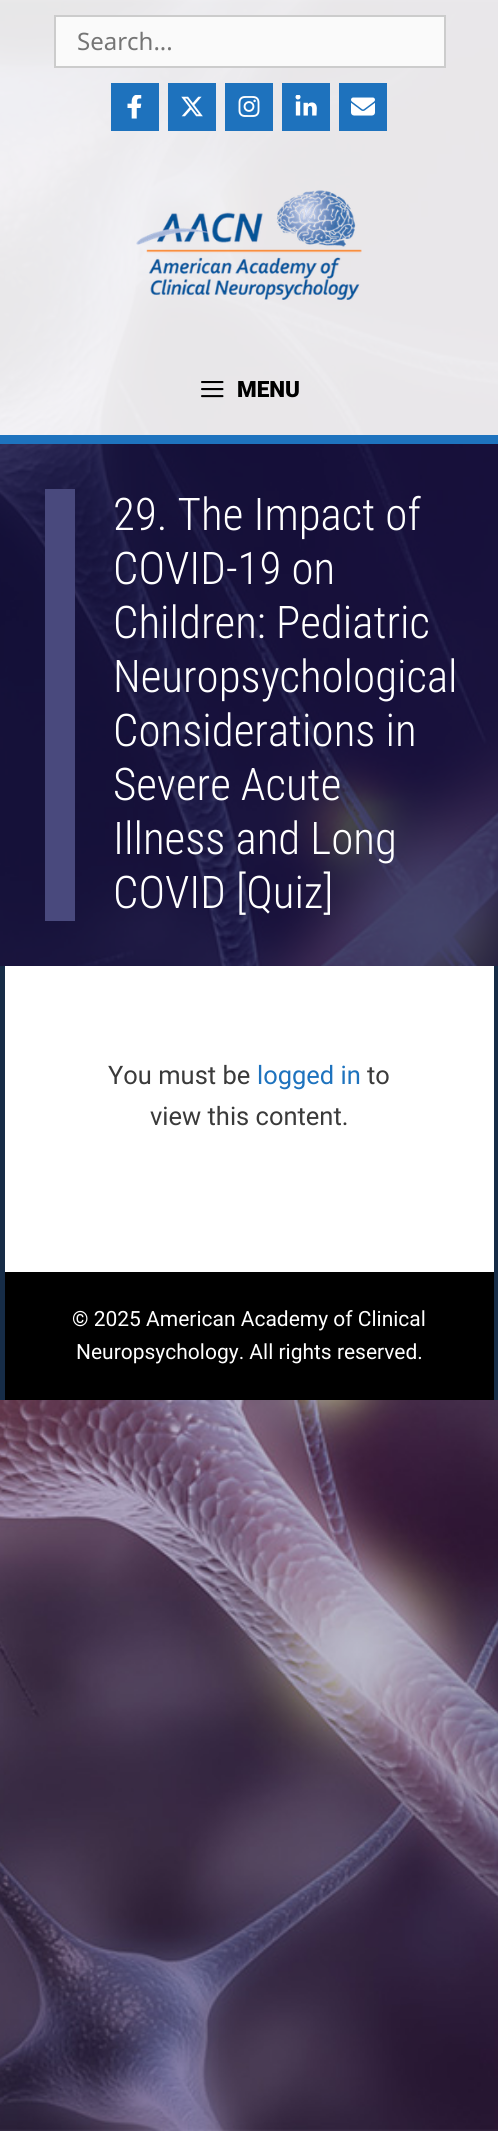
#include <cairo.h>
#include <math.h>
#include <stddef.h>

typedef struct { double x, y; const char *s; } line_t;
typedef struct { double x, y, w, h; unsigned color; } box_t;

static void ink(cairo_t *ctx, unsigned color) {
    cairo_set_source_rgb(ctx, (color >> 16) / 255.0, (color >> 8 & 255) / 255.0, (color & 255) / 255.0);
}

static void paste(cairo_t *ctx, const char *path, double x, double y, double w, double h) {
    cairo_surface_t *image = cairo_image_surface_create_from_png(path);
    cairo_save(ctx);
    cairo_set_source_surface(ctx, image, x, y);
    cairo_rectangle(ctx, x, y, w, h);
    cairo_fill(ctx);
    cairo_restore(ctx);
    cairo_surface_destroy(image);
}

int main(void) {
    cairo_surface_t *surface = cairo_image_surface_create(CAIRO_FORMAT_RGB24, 498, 2131);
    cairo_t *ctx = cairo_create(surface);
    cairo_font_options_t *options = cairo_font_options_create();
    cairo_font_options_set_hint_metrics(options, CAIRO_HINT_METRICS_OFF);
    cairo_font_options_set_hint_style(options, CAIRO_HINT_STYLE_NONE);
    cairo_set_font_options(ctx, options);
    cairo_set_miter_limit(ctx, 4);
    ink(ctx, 0xFFFFFF);
    cairo_paint(ctx);
    paste(ctx, "media/1.png", 0, 0, 498, 2131);
    cairo_set_source_rgba(ctx, 1, 1, 1, 0.9);
    cairo_rectangle(ctx, 0, 0, 498, 435);
    cairo_fill(ctx);
    ink(ctx, 0x1E73BE);
    cairo_rectangle(ctx, 0, 435, 498, 9);
    cairo_fill(ctx);
    ink(ctx, 0xFAFAFA);
    cairo_rectangle(ctx, 55, 16, 390, 51);
    cairo_fill_preserve(ctx);
    ink(ctx, 0xCCCCCC);
    cairo_stroke(ctx);
    cairo_select_font_face(ctx, "Noto Sans", CAIRO_FONT_SLANT_NORMAL, CAIRO_FONT_WEIGHT_NORMAL);
    cairo_set_font_size(ctx, 24);
    ink(ctx, 0x757575);
    cairo_move_to(ctx, 77, 50);
    cairo_show_text(ctx, "Search...");
    ink(ctx, 0x1E72BD);
    cairo_rectangle(ctx, 111, 83, 48, 48);
    cairo_fill(ctx);
    paste(ctx, "media/2.png", 127, 95, 15, 24);
    cairo_rectangle(ctx, 168, 83, 48, 48);
    cairo_fill(ctx);
    paste(ctx, "media/3.png", 181, 96, 22, 21);
    cairo_rectangle(ctx, 225, 83, 48, 48);
    cairo_fill(ctx);
    paste(ctx, "media/4.png", 238, 96, 22, 21);
    cairo_rectangle(ctx, 282, 83, 48, 48);
    cairo_fill(ctx);
    paste(ctx, "media/5.png", 295, 95, 22, 21);
    cairo_rectangle(ctx, 339, 83, 48, 48);
    cairo_fill(ctx);
    paste(ctx, "media/6.png", 351, 97, 24, 19);
    paste(ctx, "media/7.png", 136, 190, 226, 110);
    paste(ctx, "media/8.png", 201, 381, 23, 17);
    cairo_select_font_face(ctx, "Roboto Black", CAIRO_FONT_SLANT_NORMAL, CAIRO_FONT_WEIGHT_NORMAL);
    cairo_set_font_size(ctx, 22.5);
    ink(ctx, 0x000000);
    cairo_move_to(ctx, 237, 397);
    cairo_show_text(ctx, "MENU");
    cairo_set_source_rgba(ctx, 0.075, 0.075, 0.267, 0.7);
    cairo_rectangle(ctx, 0, 444, 498, 522);
    cairo_fill(ctx);
    ink(ctx, 0x49497D);
    cairo_rectangle(ctx, 45, 489, 30, 432);
    cairo_fill(ctx);
    cairo_select_font_face(ctx, "Roboto Condensed Light", CAIRO_FONT_SLANT_NORMAL, CAIRO_FONT_WEIGHT_NORMAL);
    cairo_set_font_size(ctx, 45);
    ink(ctx, 0xFFFFFF);
    {
        static const line_t items[] = {
            {113, 530, "29. The Impact of"},
            {113, 584, "COVID-19 on"},
            {113, 638, "Children: Pediatric"},
            {113, 692, "Neuropsychological"},
            {113, 746, "Considerations in"},
            {113, 800, "Severe Acute"},
            {113, 854, "Illness and Long"},
            {113, 908, "COVID [Quiz]"},
        };
        for (size_t i = 0; i < sizeof items / sizeof *items; i++) {
            cairo_move_to(ctx, items[i].x, items[i].y);
            cairo_show_text(ctx, items[i].s);
        }
    }
    {
        static const box_t items[] = {
            {5, 966, 489, 306, 0xFFFFFF},
            {494, 966, 4, 434, 0x162C47},
            {0, 966, 5, 434, 0x162C47},
        };
        for (size_t i = 0; i < sizeof items / sizeof *items; i++) {
            ink(ctx, items[i].color);
            cairo_rectangle(ctx, items[i].x, items[i].y, items[i].w, items[i].h);
            cairo_fill(ctx);
        }
    }
    cairo_select_font_face(ctx, "Roboto", CAIRO_FONT_SLANT_NORMAL, CAIRO_FONT_WEIGHT_NORMAL);
    cairo_set_font_size(ctx, 25.5);
    ink(ctx, 0x3A3A3A);
    cairo_move_to(ctx, 108, 1084);
    cairo_show_text(ctx, "You must be");
    ink(ctx, 0x1E73BE);
    cairo_move_to(ctx, 257, 1084);
    cairo_show_text(ctx, "logged in");
    ink(ctx, 0x3A3A3A);
    cairo_move_to(ctx, 367, 1084);
    cairo_show_text(ctx, "to");
    cairo_move_to(ctx, 150, 1125);
    cairo_show_text(ctx, "view this content.");
    ink(ctx, 0x000000);
    cairo_rectangle(ctx, 5, 1272, 489, 128);
    cairo_fill(ctx);
    cairo_set_font_size(ctx, 21);
    ink(ctx, 0xFFFFFF);
    cairo_move_to(ctx, 72, 1326);
    cairo_show_text(ctx, "© 2025 American Academy of Clinical");
    cairo_move_to(ctx, 76, 1359);
    cairo_show_text(ctx, "Neuropsychology. All rights reserved.");
    cairo_surface_write_to_png(surface, "image.png");
    cairo_font_options_destroy(options);
    cairo_destroy(ctx);
    cairo_surface_destroy(surface);
    return 0;
}
